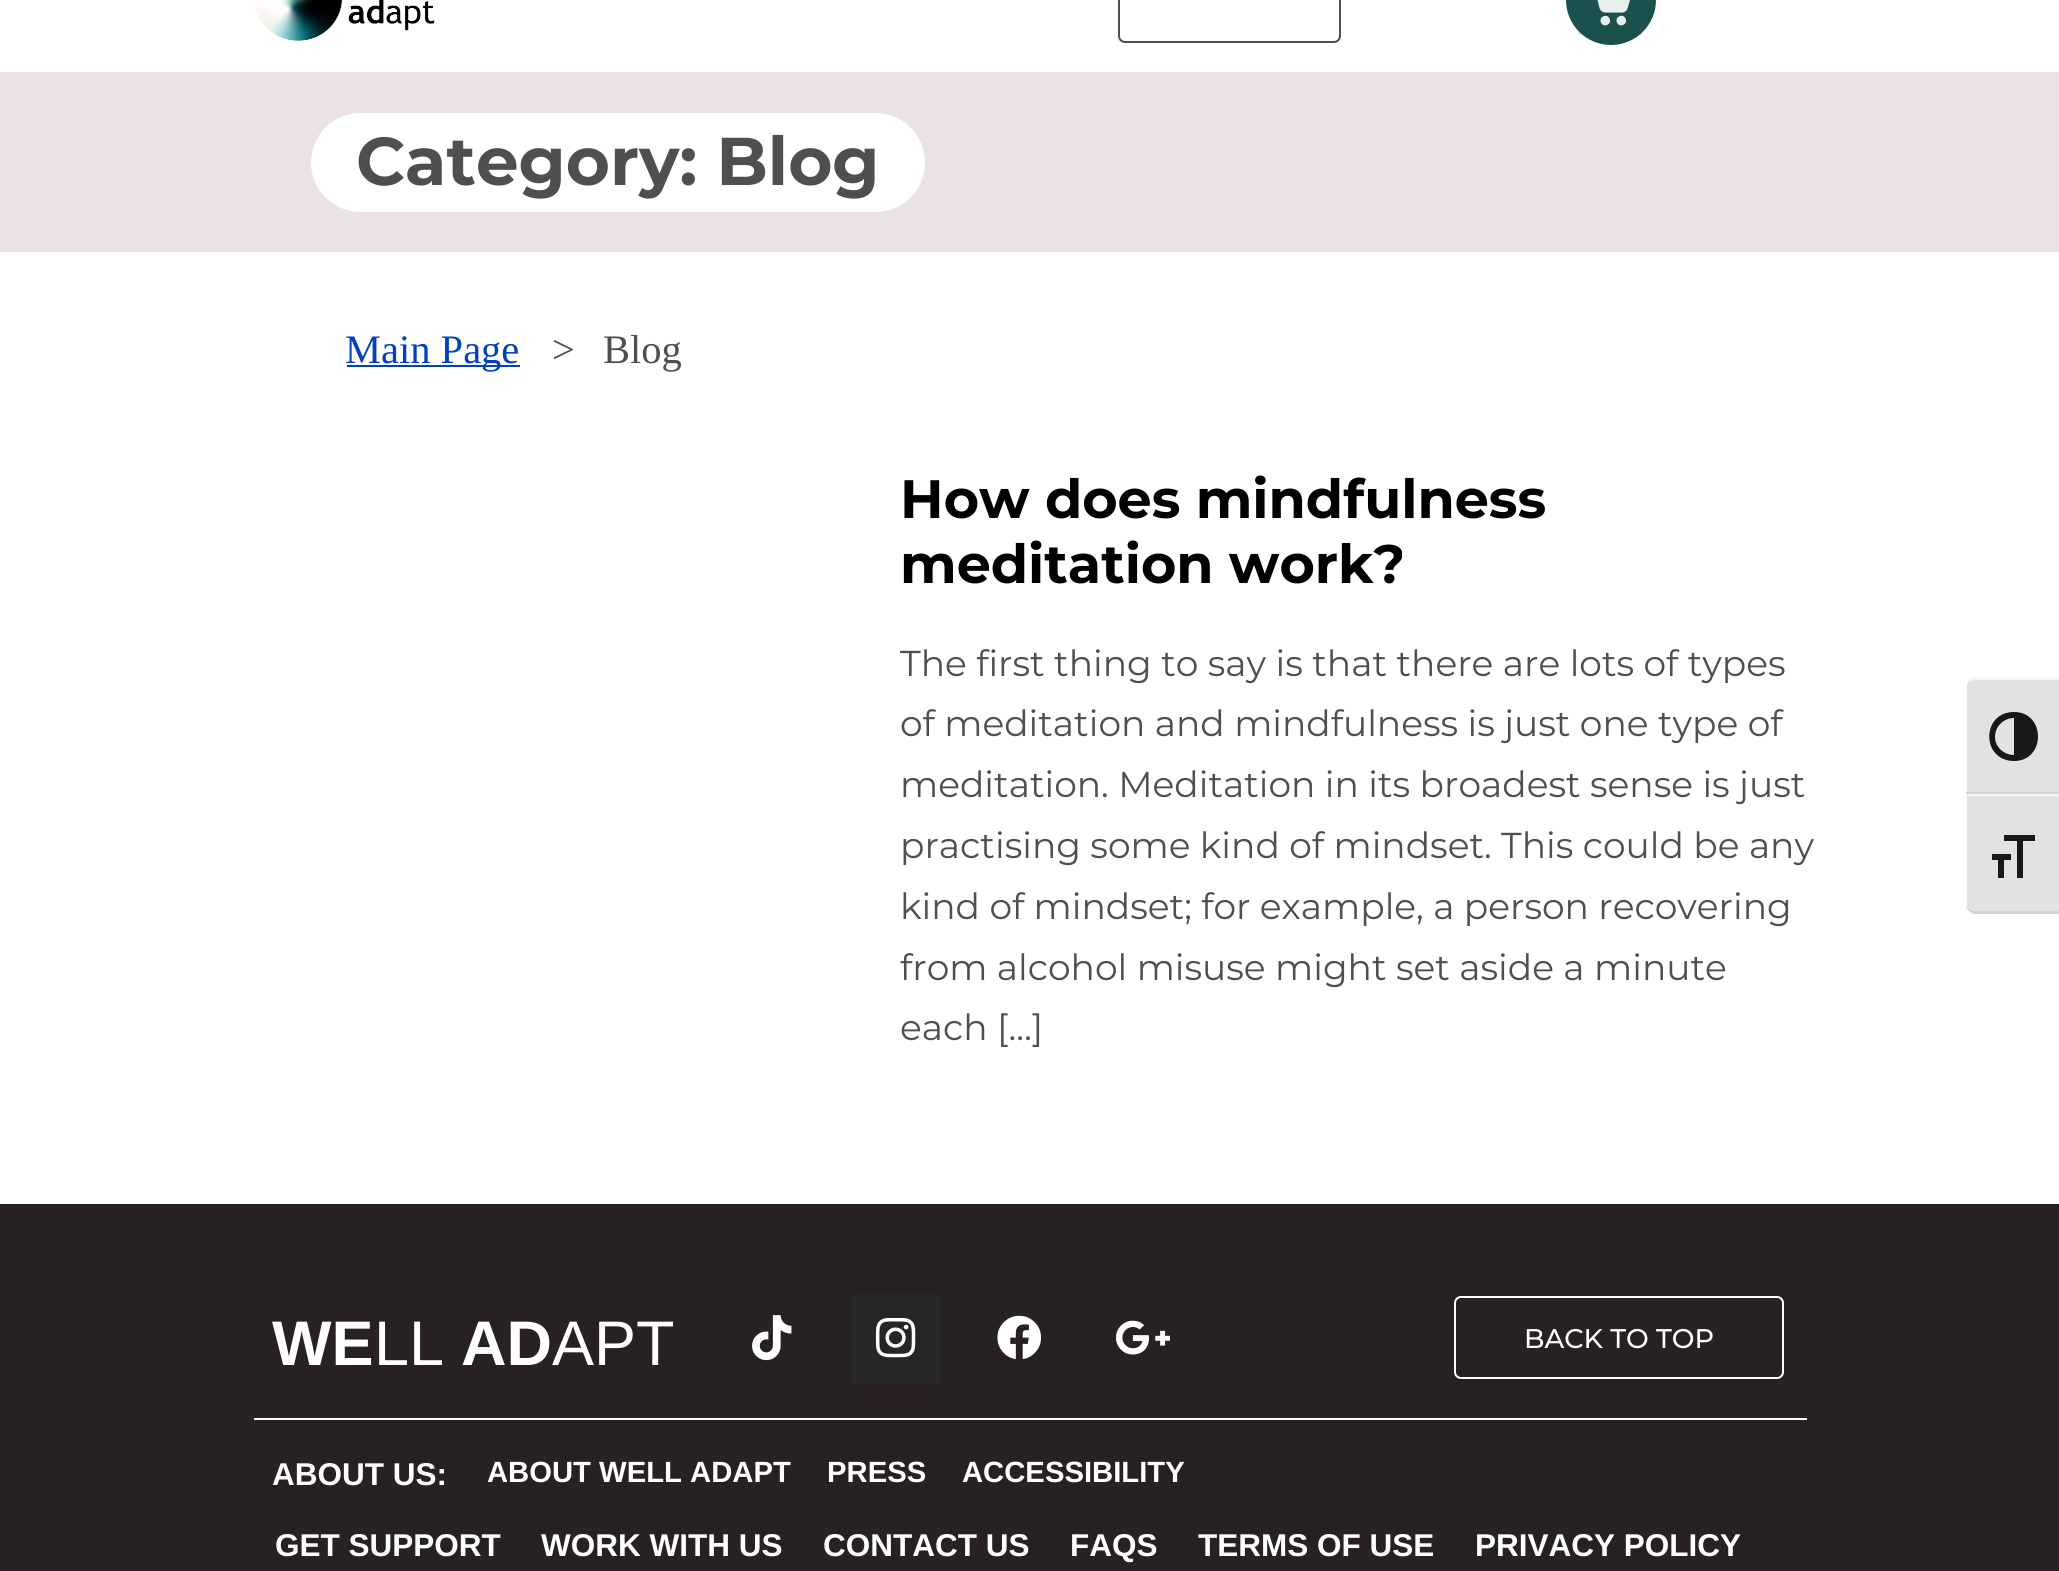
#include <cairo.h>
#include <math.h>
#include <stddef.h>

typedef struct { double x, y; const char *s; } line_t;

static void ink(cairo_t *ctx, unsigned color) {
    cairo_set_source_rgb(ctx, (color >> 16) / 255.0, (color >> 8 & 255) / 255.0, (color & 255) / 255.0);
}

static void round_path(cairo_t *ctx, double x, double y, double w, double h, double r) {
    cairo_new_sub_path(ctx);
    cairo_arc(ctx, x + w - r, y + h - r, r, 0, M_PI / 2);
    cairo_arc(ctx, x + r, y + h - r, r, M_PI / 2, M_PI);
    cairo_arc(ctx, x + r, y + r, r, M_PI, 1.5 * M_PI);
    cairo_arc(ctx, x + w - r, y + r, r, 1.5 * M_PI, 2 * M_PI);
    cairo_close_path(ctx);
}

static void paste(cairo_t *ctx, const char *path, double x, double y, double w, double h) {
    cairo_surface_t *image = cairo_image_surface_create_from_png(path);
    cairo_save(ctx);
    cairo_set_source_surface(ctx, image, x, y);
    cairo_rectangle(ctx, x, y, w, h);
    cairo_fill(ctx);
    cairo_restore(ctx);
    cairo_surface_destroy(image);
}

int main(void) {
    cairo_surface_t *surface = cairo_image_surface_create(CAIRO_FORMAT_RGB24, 2059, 1571);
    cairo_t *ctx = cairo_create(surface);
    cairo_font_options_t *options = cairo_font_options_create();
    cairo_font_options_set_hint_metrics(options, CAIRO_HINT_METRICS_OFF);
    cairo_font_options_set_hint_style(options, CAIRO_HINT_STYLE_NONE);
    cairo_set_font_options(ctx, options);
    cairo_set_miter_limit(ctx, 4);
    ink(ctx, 0xFFFFFF);
    cairo_paint(ctx);
    paste(ctx, "media/1.png", 255, 0, 180, 41);
    round_path(ctx, 1119, -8, 221, 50, 6);
    ink(ctx, 0x4F4F4F);
    cairo_stroke(ctx);
    paste(ctx, "media/2.png", 1566, 0, 90, 45);
    ink(ctx, 0xEBE3E3);
    cairo_rectangle(ctx, 0, 72, 2059, 180);
    cairo_fill(ctx);
    ink(ctx, 0xFFFFFF);
    round_path(ctx, 311, 113, 614, 99, 49.5);
    cairo_fill(ctx);
    cairo_select_font_face(ctx, "Montserrat", CAIRO_FONT_SLANT_NORMAL, CAIRO_FONT_WEIGHT_BOLD);
    cairo_set_font_size(ctx, 67.5);
    ink(ctx, 0x4F4F4F);
    cairo_move_to(ctx, 356, 185);
    cairo_show_text(ctx, "Category: Blog");
    ink(ctx, 0x0041C0);
    cairo_rectangle(ctx, 347, 365, 173, 2);
    cairo_fill(ctx);
    cairo_select_font_face(ctx, "Liberation Serif", CAIRO_FONT_SLANT_NORMAL, CAIRO_FONT_WEIGHT_NORMAL);
    cairo_set_font_size(ctx, 40.5);
    cairo_move_to(ctx, 345, 363);
    cairo_show_text(ctx, "Main Page");
    ink(ctx, 0x4F4F4F);
    cairo_move_to(ctx, 552, 363);
    cairo_show_text(ctx, ">");
    cairo_move_to(ctx, 603, 363);
    cairo_show_text(ctx, "Blog");
    cairo_select_font_face(ctx, "Montserrat", CAIRO_FONT_SLANT_NORMAL, CAIRO_FONT_WEIGHT_BOLD);
    cairo_set_font_size(ctx, 54);
    ink(ctx, 0x000000);
    cairo_move_to(ctx, 900, 518);
    cairo_show_text(ctx, "How does mindfulness");
    cairo_move_to(ctx, 900, 583);
    cairo_show_text(ctx, "meditation work?");
    cairo_select_font_face(ctx, "Montserrat", CAIRO_FONT_SLANT_NORMAL, CAIRO_FONT_WEIGHT_NORMAL);
    cairo_set_font_size(ctx, 36);
    ink(ctx, 0x4F4F4F);
    {
        static const line_t items[] = {
            {900, 676, "The first thing to say is that there are lots of types"},
            {900, 736, "of meditation and mindfulness is just one type of"},
            {900, 797, "meditation. Meditation in its broadest sense is just"},
            {900, 858, "practising some kind of mindset. This could be any"},
            {900, 919, "kind of mindset; for example, a person recovering"},
            {900, 980, "from alcohol misuse might set aside a minute"},
            {900, 1040, "each […]"},
        };
        for (size_t i = 0; i < sizeof items / sizeof *items; i++) {
            cairo_move_to(ctx, items[i].x, items[i].y);
            cairo_show_text(ctx, items[i].s);
        }
    }
    ink(ctx, 0x272126);
    cairo_rectangle(ctx, 0, 1204, 2059, 367);
    cairo_fill(ctx);
    ink(ctx, 0xFFFFFF);
    cairo_rectangle(ctx, 254, 1418, 1553, 2);
    cairo_fill(ctx);
    cairo_select_font_face(ctx, "Liberation Sans", CAIRO_FONT_SLANT_NORMAL, CAIRO_FONT_WEIGHT_BOLD);
    cairo_set_font_size(ctx, 63);
    cairo_move_to(ctx, 272, 1365);
    cairo_show_text(ctx, "WE");
    cairo_select_font_face(ctx, "Liberation Sans", CAIRO_FONT_SLANT_NORMAL, CAIRO_FONT_WEIGHT_NORMAL);
    cairo_move_to(ctx, 374, 1365);
    cairo_show_text(ctx, "LL");
    cairo_select_font_face(ctx, "Liberation Sans", CAIRO_FONT_SLANT_NORMAL, CAIRO_FONT_WEIGHT_BOLD);
    cairo_move_to(ctx, 461, 1365);
    cairo_show_text(ctx, "AD");
    cairo_select_font_face(ctx, "Liberation Sans", CAIRO_FONT_SLANT_NORMAL, CAIRO_FONT_WEIGHT_NORMAL);
    cairo_move_to(ctx, 552, 1365);
    cairo_show_text(ctx, "APT");
    paste(ctx, "media/3.png", 752, 1315, 40, 46);
    ink(ctx, 0x262626);
    cairo_rectangle(ctx, 851, 1294, 90, 90);
    cairo_fill(ctx);
    paste(ctx, "media/4.png", 875, 1317, 41, 41);
    paste(ctx, "media/5.png", 997, 1315, 45, 45);
    paste(ctx, "media/6.png", 1116, 1320, 54, 35);
    round_path(ctx, 1455, 1297, 328, 81, 6);
    ink(ctx, 0xFFFFFF);
    cairo_stroke(ctx);
    cairo_select_font_face(ctx, "Montserrat Medium", CAIRO_FONT_SLANT_NORMAL, CAIRO_FONT_WEIGHT_NORMAL);
    cairo_set_font_size(ctx, 27);
    cairo_move_to(ctx, 1524, 1348);
    cairo_show_text(ctx, "BACK TO TOP");
    cairo_select_font_face(ctx, "Liberation Sans", CAIRO_FONT_SLANT_NORMAL, CAIRO_FONT_WEIGHT_BOLD);
    cairo_set_font_size(ctx, 31.5);
    cairo_move_to(ctx, 272, 1485);
    cairo_show_text(ctx, "ABOUT US:");
    cairo_set_font_size(ctx, 29.25);
    {
        static const line_t items[] = {
            {487, 1482, "ABOUT WELL ADAPT"},
            {827, 1482, "PRESS"},
            {962, 1482, "ACCESSIBILITY"},
        };
        for (size_t i = 0; i < sizeof items / sizeof *items; i++) {
            cairo_move_to(ctx, items[i].x, items[i].y);
            cairo_show_text(ctx, items[i].s);
        }
    }
    cairo_set_font_size(ctx, 31.5);
    {
        static const line_t items[] = {
            {275, 1556, "GET SUPPORT"},
            {541, 1556, "WORK WITH US"},
            {823, 1556, "CONTACT US"},
            {1070, 1556, "FAQS"},
            {1198, 1556, "TERMS OF USE"},
            {1475, 1556, "PRIVACY POLICY"},
        };
        for (size_t i = 0; i < sizeof items / sizeof *items; i++) {
            cairo_move_to(ctx, items[i].x, items[i].y);
            cairo_show_text(ctx, items[i].s);
        }
    }
    ink(ctx, 0xE2E2E2);
    cairo_new_path(ctx);
    cairo_move_to(ctx, 1976, 677);
    cairo_line_to(ctx, 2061, 677);
    cairo_line_to(ctx, 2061, 794);
    cairo_line_to(ctx, 1967, 794);
    cairo_line_to(ctx, 1967, 686);
    cairo_curve_to(ctx, 1967, 681, 1971, 677, 1976, 677);
    cairo_close_path(ctx);
    cairo_fill(ctx);
    ink(ctx, 0xF5F5F5);
    cairo_new_path(ctx);
    cairo_move_to(ctx, 1976, 680);
    cairo_curve_to(ctx, 1972, 680, 1968, 682, 1966, 684);
    cairo_line_to(ctx, 1966, 683);
    cairo_curve_to(ctx, 1968, 680, 1971, 678, 1974, 677);
    cairo_line_to(ctx, 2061, 677);
    cairo_line_to(ctx, 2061, 680);
    cairo_close_path(ctx);
    cairo_fill(ctx);
    ink(ctx, 0xD2D2D2);
    cairo_rectangle(ctx, 1966, 792, 93, 2);
    cairo_fill(ctx);
    ink(ctx, 0x181818);
    cairo_new_path(ctx);
    cairo_move_to(ctx, 2014, 712);
    cairo_curve_to(ctx, 1981, 712, 1981, 761, 2014, 761);
    cairo_curve_to(ctx, 2046, 761, 2046, 712, 2014, 712);
    cairo_close_path(ctx);
    cairo_move_to(ctx, 1995, 737);
    cairo_curve_to(ctx, 1995, 726, 2004, 718, 2014, 718);
    cairo_line_to(ctx, 2014, 755);
    cairo_curve_to(ctx, 2004, 755, 1995, 747, 1995, 737);
    cairo_close_path(ctx);
    cairo_fill(ctx);
    ink(ctx, 0xE2E2E2);
    cairo_new_path(ctx);
    cairo_move_to(ctx, 1967, 794);
    cairo_line_to(ctx, 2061, 794);
    cairo_line_to(ctx, 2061, 914);
    cairo_line_to(ctx, 1976, 914);
    cairo_curve_to(ctx, 1971, 914, 1967, 910, 1967, 905);
    cairo_close_path(ctx);
    cairo_fill(ctx);
    ink(ctx, 0xF5F5F5);
    cairo_rectangle(ctx, 1966, 794, 93, 2);
    cairo_fill(ctx);
    ink(ctx, 0xD2D2D2);
    cairo_new_path(ctx);
    cairo_move_to(ctx, 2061, 914);
    cairo_line_to(ctx, 1973, 914);
    cairo_curve_to(ctx, 1970, 912, 1968, 910, 1966, 907);
    cairo_line_to(ctx, 1966, 906);
    cairo_curve_to(ctx, 1968, 909, 1972, 911, 1976, 911);
    cairo_line_to(ctx, 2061, 911);
    cairo_close_path(ctx);
    cairo_fill(ctx);
    ink(ctx, 0x181818);
    cairo_new_path(ctx);
    cairo_move_to(ctx, 1992, 854);
    cairo_line_to(ctx, 2011, 854);
    cairo_line_to(ctx, 2011, 860);
    cairo_line_to(ctx, 2004, 860);
    cairo_line_to(ctx, 2004, 878);
    cairo_line_to(ctx, 1998, 878);
    cairo_line_to(ctx, 1998, 860);
    cairo_line_to(ctx, 1992, 860);
    cairo_close_path(ctx);
    cairo_move_to(ctx, 2035, 841);
    cairo_line_to(ctx, 2023, 841);
    cairo_line_to(ctx, 2023, 878);
    cairo_line_to(ctx, 2017, 878);
    cairo_line_to(ctx, 2017, 841);
    cairo_line_to(ctx, 2004, 841);
    cairo_line_to(ctx, 2004, 835);
    cairo_line_to(ctx, 2035, 835);
    cairo_close_path(ctx);
    cairo_fill(ctx);
    cairo_surface_write_to_png(surface, "image.png");
    cairo_font_options_destroy(options);
    cairo_destroy(ctx);
    cairo_surface_destroy(surface);
    return 0;
}
